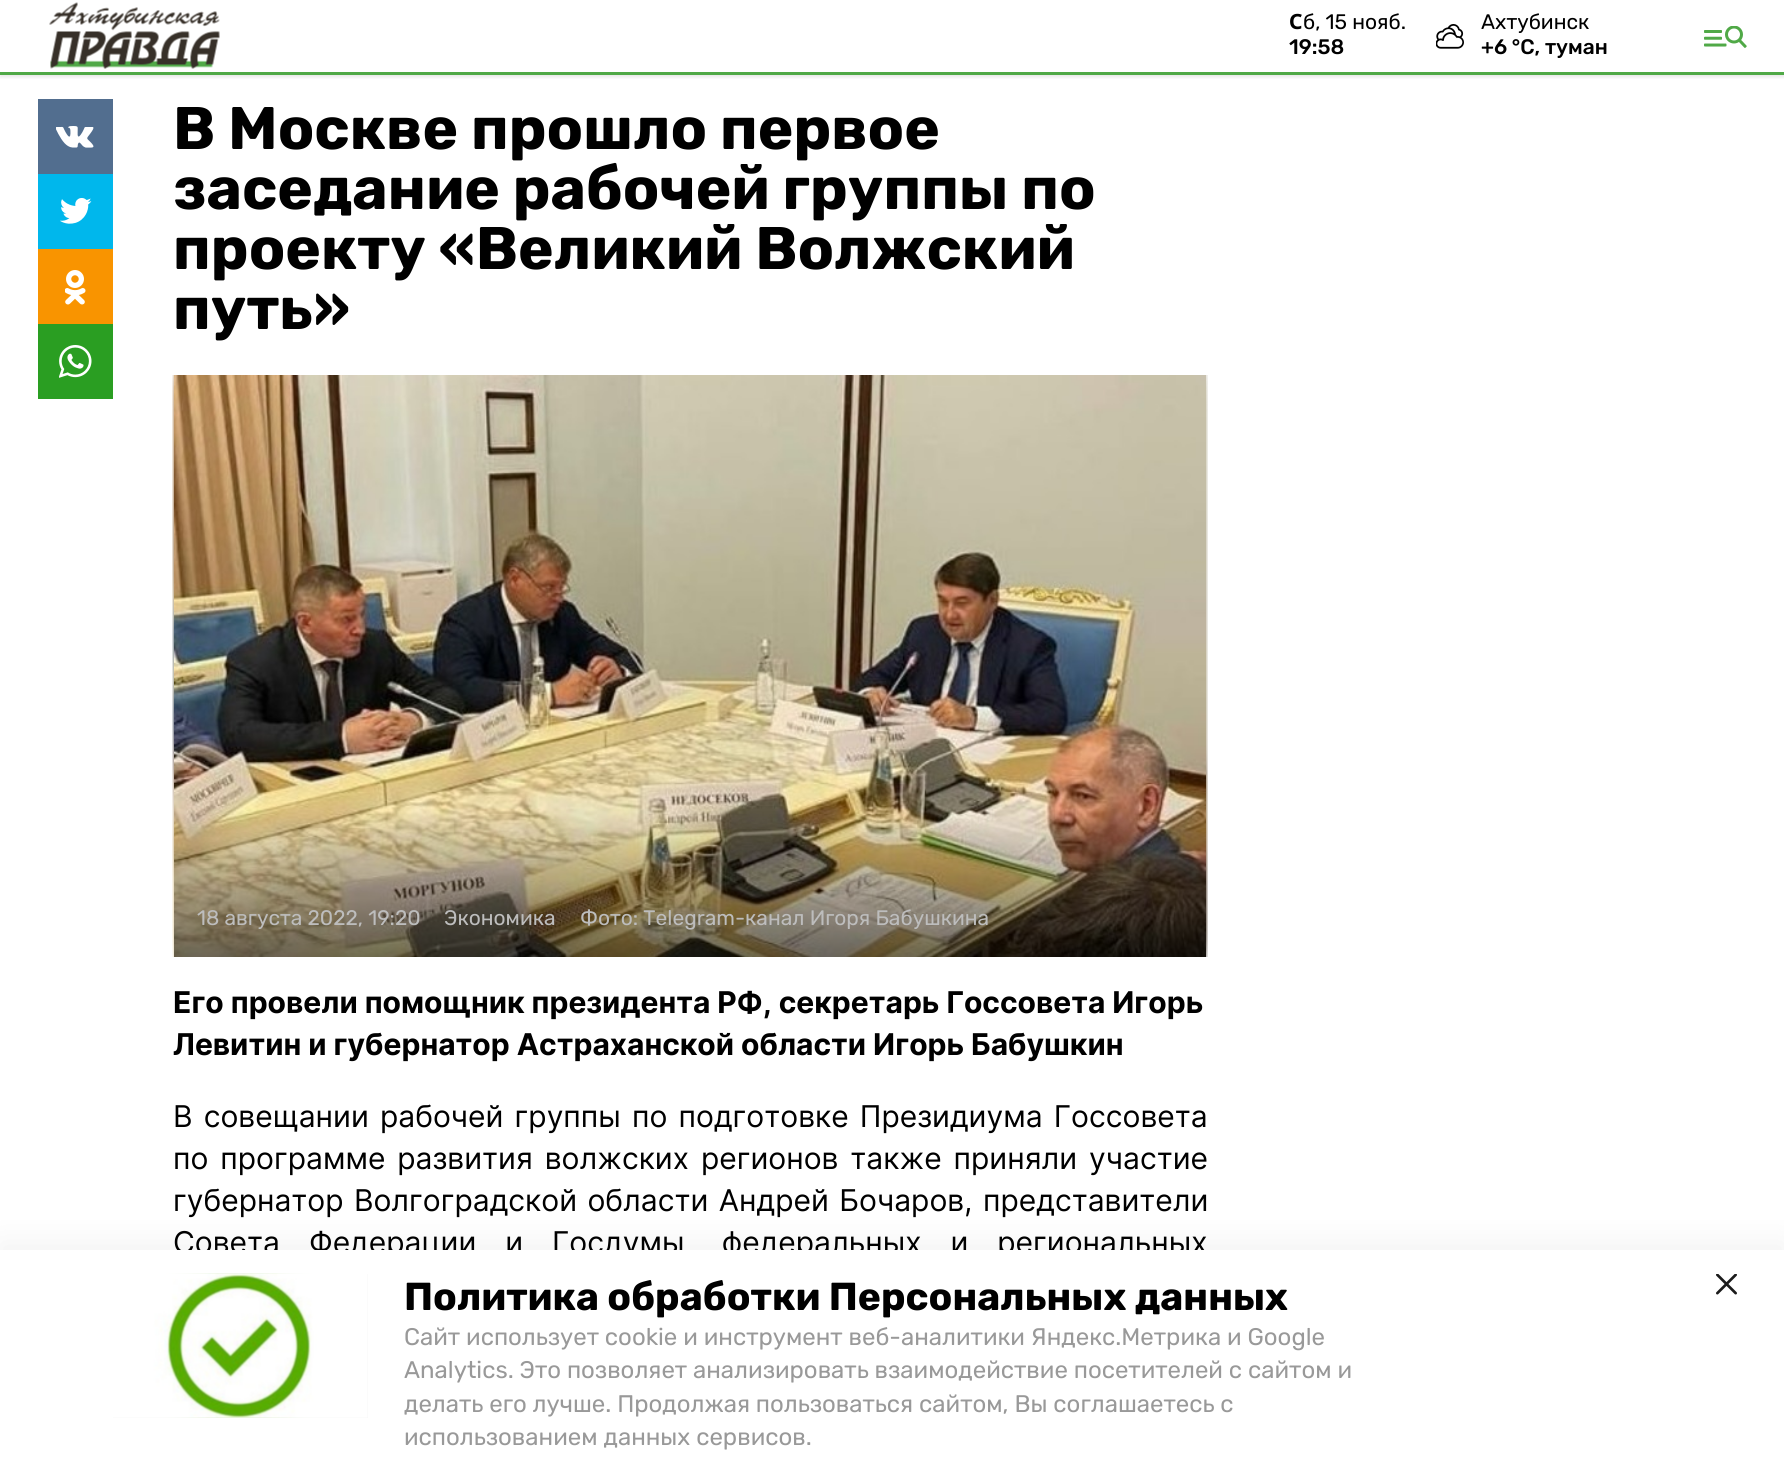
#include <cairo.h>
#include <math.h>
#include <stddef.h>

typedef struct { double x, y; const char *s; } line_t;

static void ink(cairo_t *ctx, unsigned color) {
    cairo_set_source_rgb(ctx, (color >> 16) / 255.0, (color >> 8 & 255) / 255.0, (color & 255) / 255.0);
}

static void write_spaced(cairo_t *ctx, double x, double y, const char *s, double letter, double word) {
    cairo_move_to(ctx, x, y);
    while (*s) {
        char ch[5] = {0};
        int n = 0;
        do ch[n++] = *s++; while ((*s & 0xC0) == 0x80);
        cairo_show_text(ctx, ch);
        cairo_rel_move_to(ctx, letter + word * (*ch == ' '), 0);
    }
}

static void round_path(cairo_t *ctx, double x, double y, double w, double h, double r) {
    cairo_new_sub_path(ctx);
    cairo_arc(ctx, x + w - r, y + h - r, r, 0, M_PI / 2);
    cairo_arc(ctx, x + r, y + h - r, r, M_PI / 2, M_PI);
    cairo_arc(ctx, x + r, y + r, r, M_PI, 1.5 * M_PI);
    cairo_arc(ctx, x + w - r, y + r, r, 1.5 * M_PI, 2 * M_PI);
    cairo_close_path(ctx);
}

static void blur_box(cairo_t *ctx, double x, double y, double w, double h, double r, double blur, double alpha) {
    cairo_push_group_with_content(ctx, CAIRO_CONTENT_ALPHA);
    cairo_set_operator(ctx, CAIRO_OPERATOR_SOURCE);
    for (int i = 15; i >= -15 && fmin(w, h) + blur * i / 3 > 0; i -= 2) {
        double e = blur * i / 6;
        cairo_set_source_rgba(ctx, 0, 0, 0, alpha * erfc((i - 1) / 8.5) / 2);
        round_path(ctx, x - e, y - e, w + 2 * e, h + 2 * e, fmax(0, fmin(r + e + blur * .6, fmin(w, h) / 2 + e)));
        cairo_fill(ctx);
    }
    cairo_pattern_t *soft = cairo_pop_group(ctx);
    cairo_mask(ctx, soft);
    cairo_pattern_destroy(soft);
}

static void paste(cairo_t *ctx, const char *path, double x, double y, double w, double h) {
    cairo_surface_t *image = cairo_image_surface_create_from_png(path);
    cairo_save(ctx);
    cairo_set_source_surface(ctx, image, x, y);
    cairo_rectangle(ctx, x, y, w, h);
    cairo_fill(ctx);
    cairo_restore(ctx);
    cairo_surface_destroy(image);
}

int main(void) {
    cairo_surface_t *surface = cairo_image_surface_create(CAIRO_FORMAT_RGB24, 1784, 1478);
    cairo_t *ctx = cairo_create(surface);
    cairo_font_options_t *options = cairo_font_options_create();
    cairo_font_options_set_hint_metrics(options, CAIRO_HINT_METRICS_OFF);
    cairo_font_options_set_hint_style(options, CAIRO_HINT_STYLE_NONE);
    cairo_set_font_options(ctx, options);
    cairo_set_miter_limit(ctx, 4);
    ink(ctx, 0xFFFFFF);
    cairo_paint(ctx);
    cairo_save(ctx);
    cairo_rectangle(ctx, 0, 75, 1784, 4);
    cairo_clip(ctx);
    ink(ctx, 0x000000);
    blur_box(ctx, 0, 2, 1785, 75, 0, 2, 0.1);
    cairo_restore(ctx);
    ink(ctx, 0x50A947);
    cairo_rectangle(ctx, 0, 72, 1784, 3);
    cairo_fill(ctx);
    paste(ctx, "media/1.png", 49, 2, 171, 67);
    cairo_select_font_face(ctx, "Noto Sans", CAIRO_FONT_SLANT_NORMAL, CAIRO_FONT_WEIGHT_BOLD);
    cairo_set_font_size(ctx, 21);
    ink(ctx, 0x000000);
    cairo_move_to(ctx, 1289, 29);
    cairo_show_text(ctx, "С");
    cairo_select_font_face(ctx, "Rubik", CAIRO_FONT_SLANT_NORMAL, CAIRO_FONT_WEIGHT_NORMAL);
    cairo_move_to(ctx, 1303, 29);
    cairo_show_text(ctx, "б, 15 нояб.");
    cairo_select_font_face(ctx, "Rubik Medium", CAIRO_FONT_SLANT_NORMAL, CAIRO_FONT_WEIGHT_NORMAL);
    cairo_move_to(ctx, 1289, 54);
    cairo_show_text(ctx, "19:58");
    paste(ctx, "media/2.png", 1436, 24, 28, 25);
    cairo_select_font_face(ctx, "Rubik", CAIRO_FONT_SLANT_NORMAL, CAIRO_FONT_WEIGHT_NORMAL);
    cairo_move_to(ctx, 1481, 29);
    cairo_show_text(ctx, "Ахтубинск");
    cairo_select_font_face(ctx, "Rubik Medium", CAIRO_FONT_SLANT_NORMAL, CAIRO_FONT_WEIGHT_NORMAL);
    cairo_move_to(ctx, 1481, 54);
    cairo_show_text(ctx, "+6 °С, туман");
    paste(ctx, "media/3.png", 1704, 26, 43, 22);
    ink(ctx, 0x526E8F);
    cairo_rectangle(ctx, 38, 99, 75, 75);
    cairo_fill(ctx);
    paste(ctx, "media/4.png", 56, 126, 38, 22);
    ink(ctx, 0x00B7EC);
    cairo_rectangle(ctx, 38, 174, 75, 75);
    cairo_fill(ctx);
    paste(ctx, "media/5.png", 60, 198, 32, 26);
    ink(ctx, 0xF99400);
    cairo_rectangle(ctx, 38, 249, 75, 75);
    cairo_fill(ctx);
    paste(ctx, "media/6.png", 65, 270, 21, 35);
    ink(ctx, 0x2A9E22);
    cairo_rectangle(ctx, 38, 324, 75, 75);
    cairo_fill(ctx);
    paste(ctx, "media/7.png", 59, 345, 33, 33);
    cairo_select_font_face(ctx, "Rubik", CAIRO_FONT_SLANT_NORMAL, CAIRO_FONT_WEIGHT_BOLD);
    cairo_set_font_size(ctx, 60);
    ink(ctx, 0x000000);
    {
        static const line_t items[] = {
            {173, 149, "В Москве прошло первое"},
            {173, 209, "заседание рабочей группы по"},
            {173, 269, "проекту «Великий Волжский"},
            {173, 329, "путь»"},
        };
        for (size_t i = 0; i < sizeof items / sizeof *items; i++) {
            cairo_move_to(ctx, items[i].x, items[i].y);
            cairo_show_text(ctx, items[i].s);
        }
    }
    ink(ctx, 0xF7F7F7);
    cairo_rectangle(ctx, 173, 375, 1035, 582);
    cairo_fill(ctx);
    paste(ctx, "media/8.png", 172, 375, 1036, 582);
    paste(ctx, "media/9.png", 174, 375, 1032, 582);
    cairo_select_font_face(ctx, "Rubik", CAIRO_FONT_SLANT_NORMAL, CAIRO_FONT_WEIGHT_NORMAL);
    cairo_set_font_size(ctx, 21);
    ink(ctx, 0xBDBDBD);
    {
        static const line_t items[] = {
            {197, 925, "18 августа 2022, 19:20"},
            {444, 925, "Экономика"},
            {580, 925, "Фото: Telegram-канал Игоря Бабушкина"},
        };
        for (size_t i = 0; i < sizeof items / sizeof *items; i++) {
            cairo_move_to(ctx, items[i].x, items[i].y);
            cairo_show_text(ctx, items[i].s);
        }
    }
    cairo_select_font_face(ctx, "Inter", CAIRO_FONT_SLANT_NORMAL, CAIRO_FONT_WEIGHT_BOLD);
    cairo_set_font_size(ctx, 30);
    ink(ctx, 0x000000);
    cairo_move_to(ctx, 173, 1013);
    cairo_show_text(ctx, "Его провели помощник президента РФ, секретарь Госсовета Игорь");
    cairo_move_to(ctx, 173, 1055);
    cairo_show_text(ctx, "Левитин и губернатор Астраханской области Игорь Бабушкин");
    cairo_select_font_face(ctx, "Inter", CAIRO_FONT_SLANT_NORMAL, CAIRO_FONT_WEIGHT_NORMAL);
    write_spaced(ctx, 173, 1127, "В совещании рабочей группы по подготовке Президиума Госсовета", 0, 2.75);
    write_spaced(ctx, 173, 1169, "по программе развития волжских регионов также приняли участие", 0, 3.5);
    write_spaced(ctx, 173, 1211, "губернатор Волгоградской области Андрей Бочаров, представители", 0, 2);
    write_spaced(ctx, 173, 1253, "Совета Федерации и Госдумы, федеральных и региональных", 0, 20.5);
    ink(ctx, 0x000000);
    blur_box(ctx, 0, 1242, 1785, 230, 0, 15, 0.05);
    ink(ctx, 0xFFFFFF);
    cairo_rectangle(ctx, 0, 1250, 1784, 228);
    cairo_fill(ctx);
    ink(ctx, 0xF7F7F7);
    cairo_rectangle(ctx, 113, 1274, 255, 144);
    cairo_fill(ctx);
    paste(ctx, "media/10.png", 113, 1273, 254, 145);
    paste(ctx, "media/11.png", 113, 1273, 255, 145);
    cairo_select_font_face(ctx, "Rubik", CAIRO_FONT_SLANT_NORMAL, CAIRO_FONT_WEIGHT_BOLD);
    cairo_set_font_size(ctx, 39);
    ink(ctx, 0x000000);
    cairo_move_to(ctx, 404, 1310);
    cairo_show_text(ctx, "Политика обработки Персональных данных");
    cairo_select_font_face(ctx, "Rubik", CAIRO_FONT_SLANT_NORMAL, CAIRO_FONT_WEIGHT_NORMAL);
    cairo_set_font_size(ctx, 24);
    ink(ctx, 0x999999);
    {
        static const line_t items[] = {
            {404, 1345, "Сайт использует cookie и инструмент веб-аналитики Яндекс.Метрика и Google"},
            {404, 1378, "Analytics. Это позволяет анализировать взаимодействие посетителей с сайтом и"},
            {404, 1412, "делать его лучше. Продолжая пользоваться сайтом, Вы соглашаетесь с"},
            {404, 1445, "использованием данных сервисов."},
        };
        for (size_t i = 0; i < sizeof items / sizeof *items; i++) {
            cairo_move_to(ctx, items[i].x, items[i].y);
            cairo_show_text(ctx, items[i].s);
        }
    }
    paste(ctx, "media/12.png", 1716, 1274, 21, 21);
    cairo_surface_write_to_png(surface, "image.png");
    cairo_font_options_destroy(options);
    cairo_destroy(ctx);
    cairo_surface_destroy(surface);
    return 0;
}
